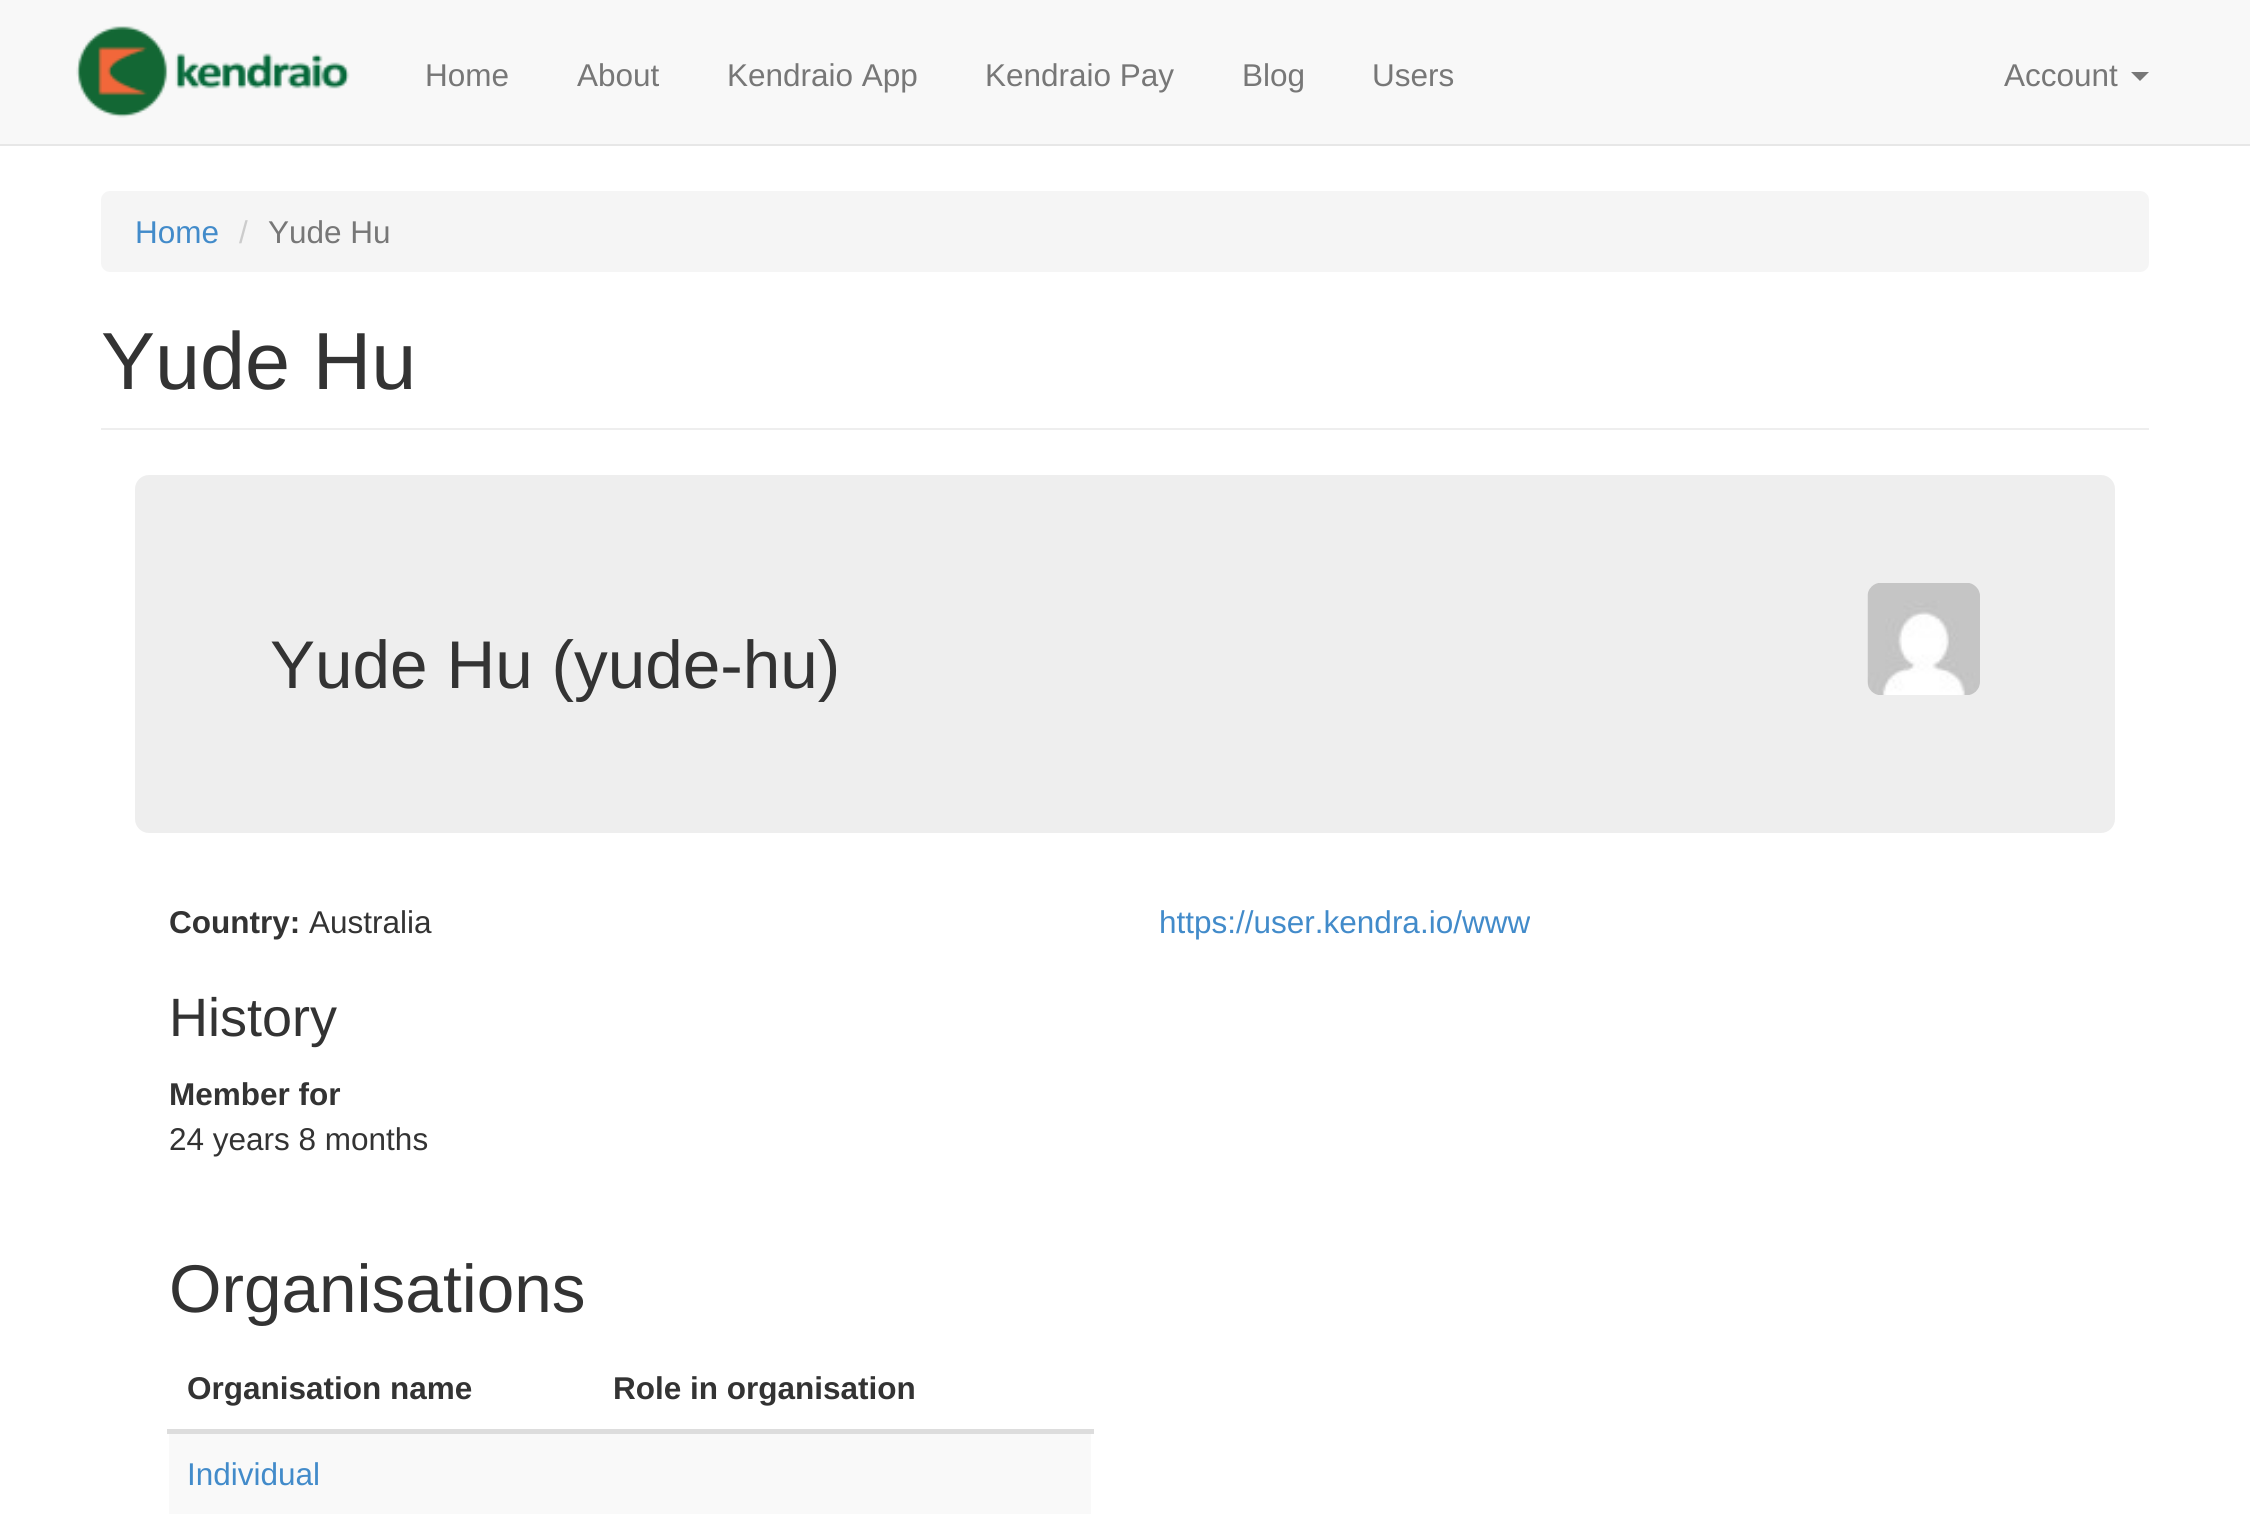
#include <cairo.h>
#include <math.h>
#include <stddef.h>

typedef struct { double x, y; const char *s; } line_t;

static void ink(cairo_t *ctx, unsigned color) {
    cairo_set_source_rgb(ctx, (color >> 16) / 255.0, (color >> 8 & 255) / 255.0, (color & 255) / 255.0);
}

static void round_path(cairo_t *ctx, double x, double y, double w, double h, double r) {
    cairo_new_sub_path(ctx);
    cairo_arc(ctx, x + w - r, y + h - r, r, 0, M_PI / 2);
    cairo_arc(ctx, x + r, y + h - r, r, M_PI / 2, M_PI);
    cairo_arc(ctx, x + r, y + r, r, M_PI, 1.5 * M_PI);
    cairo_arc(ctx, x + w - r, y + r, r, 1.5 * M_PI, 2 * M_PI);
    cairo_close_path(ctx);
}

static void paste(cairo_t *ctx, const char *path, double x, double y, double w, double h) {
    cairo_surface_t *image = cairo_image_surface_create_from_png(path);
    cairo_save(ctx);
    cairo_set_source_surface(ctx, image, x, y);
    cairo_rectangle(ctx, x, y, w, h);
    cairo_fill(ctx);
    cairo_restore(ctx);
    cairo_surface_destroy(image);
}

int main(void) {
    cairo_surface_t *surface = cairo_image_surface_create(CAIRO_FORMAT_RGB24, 2250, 1521);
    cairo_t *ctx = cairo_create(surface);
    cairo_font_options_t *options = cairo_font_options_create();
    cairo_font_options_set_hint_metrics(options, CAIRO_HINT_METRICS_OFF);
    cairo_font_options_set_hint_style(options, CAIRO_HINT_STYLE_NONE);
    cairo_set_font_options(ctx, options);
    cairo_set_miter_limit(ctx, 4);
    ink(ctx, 0xFFFFFF);
    cairo_paint(ctx);
    ink(ctx, 0xF8F8F8);
    cairo_rectangle(ctx, 0, 0, 2250, 144);
    cairo_fill(ctx);
    ink(ctx, 0xE7E7E7);
    cairo_rectangle(ctx, 0, 144, 2250, 2);
    cairo_fill(ctx);
    paste(ctx, "media/1.png", 76, 26, 274, 92);
    cairo_select_font_face(ctx, "Liberation Sans", CAIRO_FONT_SLANT_NORMAL, CAIRO_FONT_WEIGHT_NORMAL);
    cairo_set_font_size(ctx, 31.5);
    ink(ctx, 0x777777);
    {
        static const line_t items[] = {
            {425, 86, "Home"},
            {577, 86, "About"},
            {727, 86, "Kendraio App"},
            {985, 86, "Kendraio Pay"},
            {1242, 86, "Blog"},
            {1372, 86, "Users"},
            {2004, 86, "Account"},
        };
        for (size_t i = 0; i < sizeof items / sizeof *items; i++) {
            cairo_move_to(ctx, items[i].x, items[i].y);
            cairo_show_text(ctx, items[i].s);
        }
    }
    cairo_new_path(ctx);
    cairo_move_to(ctx, 2131, 72);
    cairo_line_to(ctx, 2149, 72);
    cairo_line_to(ctx, 2140, 81);
    cairo_close_path(ctx);
    cairo_fill(ctx);
    ink(ctx, 0xF5F5F5);
    round_path(ctx, 101, 191, 2048, 81, 9);
    cairo_fill(ctx);
    ink(ctx, 0x428BCA);
    cairo_move_to(ctx, 135, 243);
    cairo_show_text(ctx, "Home");
    ink(ctx, 0xCCCCCC);
    cairo_move_to(ctx, 239, 243);
    cairo_show_text(ctx, "/");
    ink(ctx, 0x777777);
    cairo_move_to(ctx, 268, 243);
    cairo_show_text(ctx, "Yude Hu");
    ink(ctx, 0xEEEEEE);
    cairo_rectangle(ctx, 101, 428, 2048, 2);
    cairo_fill(ctx);
    cairo_set_font_size(ctx, 81);
    ink(ctx, 0x333333);
    cairo_move_to(ctx, 101, 389);
    cairo_show_text(ctx, "Yude Hu");
    ink(ctx, 0xEEEEEE);
    round_path(ctx, 135, 475, 1980, 358, 14);
    cairo_fill(ctx);
    cairo_set_font_size(ctx, 67.5);
    ink(ctx, 0x333333);
    cairo_move_to(ctx, 270, 688);
    cairo_show_text(ctx, "Yude Hu (yude-hu)");
    paste(ctx, "media/2.png", 1867, 583, 113, 112);
    cairo_select_font_face(ctx, "Liberation Sans", CAIRO_FONT_SLANT_NORMAL, CAIRO_FONT_WEIGHT_BOLD);
    cairo_set_font_size(ctx, 31.5);
    cairo_move_to(ctx, 169, 933);
    cairo_show_text(ctx, "Country:");
    cairo_select_font_face(ctx, "Liberation Sans", CAIRO_FONT_SLANT_NORMAL, CAIRO_FONT_WEIGHT_NORMAL);
    cairo_move_to(ctx, 309, 933);
    cairo_show_text(ctx, "Australia");
    cairo_set_font_size(ctx, 54);
    cairo_move_to(ctx, 169, 1036);
    cairo_show_text(ctx, "History");
    cairo_select_font_face(ctx, "Liberation Sans", CAIRO_FONT_SLANT_NORMAL, CAIRO_FONT_WEIGHT_BOLD);
    cairo_set_font_size(ctx, 31.5);
    cairo_move_to(ctx, 169, 1105);
    cairo_show_text(ctx, "Member for");
    cairo_select_font_face(ctx, "Liberation Sans", CAIRO_FONT_SLANT_NORMAL, CAIRO_FONT_WEIGHT_NORMAL);
    cairo_move_to(ctx, 169, 1150);
    cairo_show_text(ctx, "24 years 8 months");
    ink(ctx, 0x428BCA);
    cairo_move_to(ctx, 1159, 933);
    cairo_show_text(ctx, "https://user.kendra.io/www");
    cairo_set_font_size(ctx, 67.5);
    ink(ctx, 0x333333);
    cairo_move_to(ctx, 169, 1312);
    cairo_show_text(ctx, "Organisations");
    cairo_select_font_face(ctx, "Liberation Sans", CAIRO_FONT_SLANT_NORMAL, CAIRO_FONT_WEIGHT_BOLD);
    cairo_set_font_size(ctx, 31.5);
    cairo_move_to(ctx, 187, 1399);
    cairo_show_text(ctx, "Organisation name");
    cairo_move_to(ctx, 613, 1399);
    cairo_show_text(ctx, "Role in organisation");
    ink(ctx, 0xDDDDDD);
    cairo_rectangle(ctx, 167, 1429, 927, 5);
    cairo_fill(ctx);
    ink(ctx, 0xF9F9F9);
    cairo_rectangle(ctx, 169, 1434, 922, 80);
    cairo_fill(ctx);
    cairo_select_font_face(ctx, "Liberation Sans", CAIRO_FONT_SLANT_NORMAL, CAIRO_FONT_WEIGHT_NORMAL);
    ink(ctx, 0x428BCA);
    cairo_move_to(ctx, 187, 1485);
    cairo_show_text(ctx, "Individual");
    cairo_surface_write_to_png(surface, "image.png");
    cairo_font_options_destroy(options);
    cairo_destroy(ctx);
    cairo_surface_destroy(surface);
    return 0;
}
